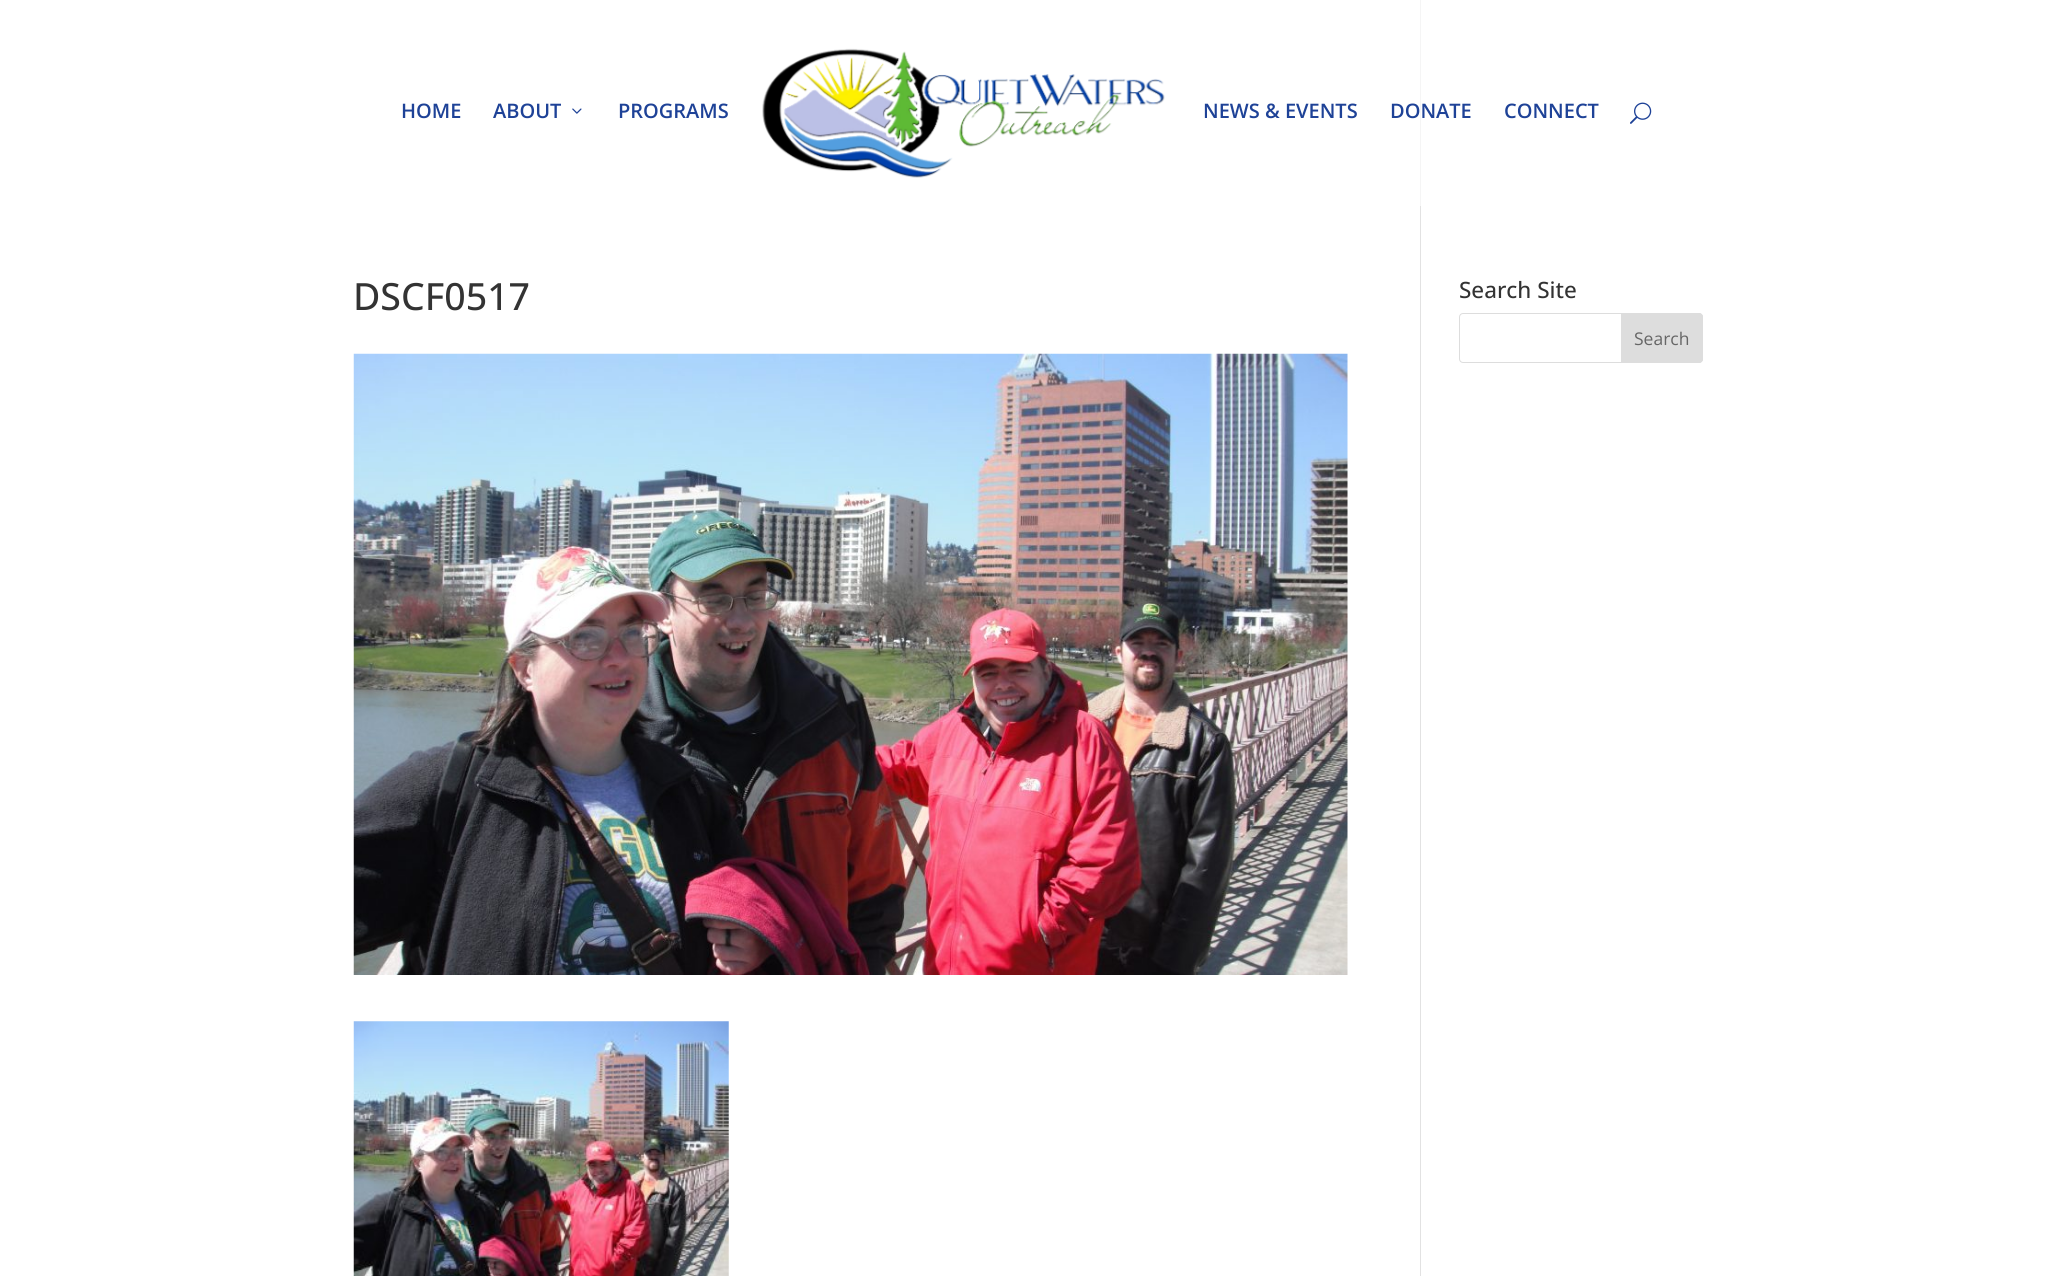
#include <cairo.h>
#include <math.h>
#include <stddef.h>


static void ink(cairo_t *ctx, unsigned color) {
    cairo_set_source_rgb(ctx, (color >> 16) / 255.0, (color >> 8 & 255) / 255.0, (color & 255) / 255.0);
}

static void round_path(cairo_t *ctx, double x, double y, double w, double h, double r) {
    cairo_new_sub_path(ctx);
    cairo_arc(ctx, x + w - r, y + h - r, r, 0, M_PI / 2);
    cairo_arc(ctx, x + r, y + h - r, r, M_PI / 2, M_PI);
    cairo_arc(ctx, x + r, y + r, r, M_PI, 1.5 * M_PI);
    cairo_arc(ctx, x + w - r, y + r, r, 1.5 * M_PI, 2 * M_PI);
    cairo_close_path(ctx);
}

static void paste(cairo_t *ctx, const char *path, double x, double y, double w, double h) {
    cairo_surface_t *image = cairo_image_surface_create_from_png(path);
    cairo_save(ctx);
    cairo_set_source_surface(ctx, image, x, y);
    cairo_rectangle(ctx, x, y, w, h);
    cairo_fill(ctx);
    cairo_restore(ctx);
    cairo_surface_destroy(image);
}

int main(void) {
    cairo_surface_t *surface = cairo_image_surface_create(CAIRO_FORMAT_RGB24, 2056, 1276);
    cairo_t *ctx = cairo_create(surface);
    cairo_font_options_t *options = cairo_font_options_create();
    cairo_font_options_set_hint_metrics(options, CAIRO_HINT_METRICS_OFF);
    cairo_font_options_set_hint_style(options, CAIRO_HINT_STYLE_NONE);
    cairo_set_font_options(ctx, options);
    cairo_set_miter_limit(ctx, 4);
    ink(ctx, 0xFFFFFF);
    cairo_paint(ctx);
    cairo_select_font_face(ctx, "Open Sans SemiBold", CAIRO_FONT_SLANT_NORMAL, CAIRO_FONT_WEIGHT_NORMAL);
    cairo_set_font_size(ctx, 20);
    ink(ctx, 0x1E4297);
    cairo_move_to(ctx, 401, 118);
    cairo_show_text(ctx, "HOME");
    cairo_move_to(ctx, 493, 118);
    cairo_show_text(ctx, "ABOUT");
    paste(ctx, "media/1.png", 572, 108, 10, 6);
    cairo_move_to(ctx, 618, 118);
    cairo_show_text(ctx, "PROGRAMS");
    paste(ctx, "media/2.png", 762, 48, 403, 130);
    cairo_move_to(ctx, 1203, 118);
    cairo_show_text(ctx, "NEWS & EVENTS");
    ink(ctx, 0xF5F5F5);
    cairo_rectangle(ctx, 1420, 0, 1, 206);
    cairo_fill(ctx);
    ink(ctx, 0x1E4297);
    cairo_move_to(ctx, 1390, 118);
    cairo_show_text(ctx, "DONATE");
    cairo_move_to(ctx, 1504, 118);
    cairo_show_text(ctx, "CONNECT");
    paste(ctx, "media/3.png", 1630, 102, 22, 22);
    ink(ctx, 0xE2E2E2);
    cairo_rectangle(ctx, 1420, 206, 1, 1070);
    cairo_fill(ctx);
    cairo_select_font_face(ctx, "Open Sans Medium", CAIRO_FONT_SLANT_NORMAL, CAIRO_FONT_WEIGHT_NORMAL);
    cairo_set_font_size(ctx, 37.5);
    ink(ctx, 0x333333);
    cairo_move_to(ctx, 353, 310);
    cairo_show_text(ctx, "DSCF0517");
    paste(ctx, "media/4.png", 353, 353, 995, 622);
    paste(ctx, "media/5.png", 353, 1021, 376, 255);
    cairo_set_font_size(ctx, 22.5);
    cairo_move_to(ctx, 1459, 298);
    cairo_show_text(ctx, "Search Site");
    round_path(ctx, 1459.5, 313.5, 243, 49, 3.5);
    ink(ctx, 0xDDDDDD);
    cairo_set_line_width(ctx, 1);
    cairo_stroke(ctx);
    cairo_new_path(ctx);
    cairo_move_to(ctx, 1621.5, 313.5);
    cairo_line_to(ctx, 1699, 313.5);
    cairo_curve_to(ctx, 1701, 313.5, 1702.5, 315, 1702.5, 317);
    cairo_line_to(ctx, 1702.5, 359);
    cairo_curve_to(ctx, 1702.5, 361, 1701, 362.5, 1699, 362.5);
    cairo_line_to(ctx, 1621.5, 362.5);
    cairo_close_path(ctx);
    cairo_fill_preserve(ctx);
    cairo_stroke(ctx);
    cairo_select_font_face(ctx, "Open Sans", CAIRO_FONT_SLANT_NORMAL, CAIRO_FONT_WEIGHT_NORMAL);
    cairo_set_font_size(ctx, 17.5);
    ink(ctx, 0x666666);
    cairo_move_to(ctx, 1634, 345);
    cairo_show_text(ctx, "Search");
    cairo_surface_write_to_png(surface, "image.png");
    cairo_font_options_destroy(options);
    cairo_destroy(ctx);
    cairo_surface_destroy(surface);
    return 0;
}
